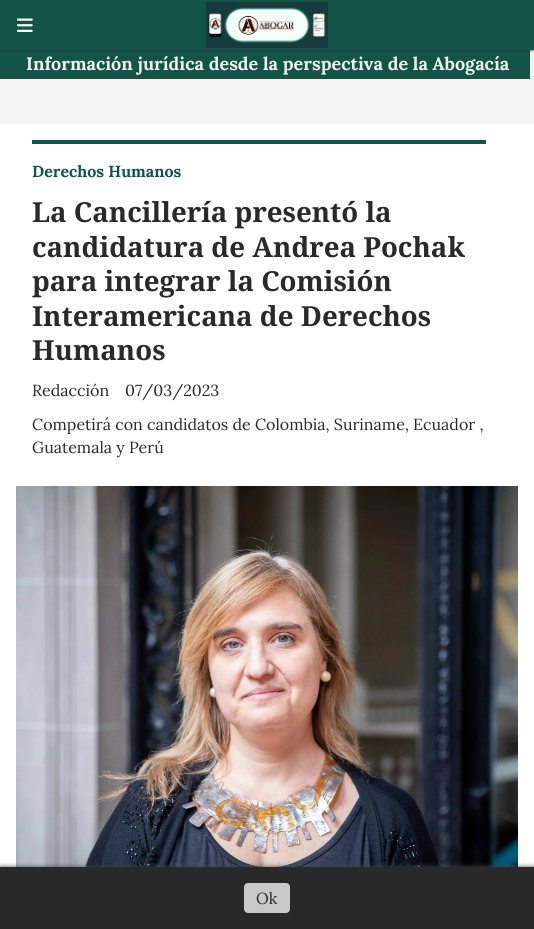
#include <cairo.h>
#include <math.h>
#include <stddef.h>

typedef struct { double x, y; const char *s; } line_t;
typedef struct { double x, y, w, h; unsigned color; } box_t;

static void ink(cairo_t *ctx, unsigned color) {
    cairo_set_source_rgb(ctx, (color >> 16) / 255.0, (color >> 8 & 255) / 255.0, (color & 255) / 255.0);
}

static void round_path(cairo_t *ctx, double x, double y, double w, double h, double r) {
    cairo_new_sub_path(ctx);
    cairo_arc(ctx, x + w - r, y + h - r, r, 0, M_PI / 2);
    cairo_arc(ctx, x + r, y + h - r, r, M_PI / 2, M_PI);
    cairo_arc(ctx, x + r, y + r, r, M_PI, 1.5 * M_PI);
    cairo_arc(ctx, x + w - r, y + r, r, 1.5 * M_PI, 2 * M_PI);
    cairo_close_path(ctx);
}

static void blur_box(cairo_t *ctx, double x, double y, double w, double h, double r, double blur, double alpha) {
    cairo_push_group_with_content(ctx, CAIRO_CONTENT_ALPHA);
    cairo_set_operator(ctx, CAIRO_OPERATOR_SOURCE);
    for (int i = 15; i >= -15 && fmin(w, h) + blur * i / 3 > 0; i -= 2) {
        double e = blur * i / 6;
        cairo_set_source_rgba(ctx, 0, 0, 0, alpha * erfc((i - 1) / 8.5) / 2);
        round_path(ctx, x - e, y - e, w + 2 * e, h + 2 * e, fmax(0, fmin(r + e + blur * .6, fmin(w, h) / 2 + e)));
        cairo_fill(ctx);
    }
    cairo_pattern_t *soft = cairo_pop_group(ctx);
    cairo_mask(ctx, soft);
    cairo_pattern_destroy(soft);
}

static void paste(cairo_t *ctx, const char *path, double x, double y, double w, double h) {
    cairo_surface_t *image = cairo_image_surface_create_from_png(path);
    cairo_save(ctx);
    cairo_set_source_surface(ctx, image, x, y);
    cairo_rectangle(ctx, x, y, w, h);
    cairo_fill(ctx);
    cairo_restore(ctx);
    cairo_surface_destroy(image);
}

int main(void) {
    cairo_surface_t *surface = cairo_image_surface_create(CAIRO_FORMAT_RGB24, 534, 929);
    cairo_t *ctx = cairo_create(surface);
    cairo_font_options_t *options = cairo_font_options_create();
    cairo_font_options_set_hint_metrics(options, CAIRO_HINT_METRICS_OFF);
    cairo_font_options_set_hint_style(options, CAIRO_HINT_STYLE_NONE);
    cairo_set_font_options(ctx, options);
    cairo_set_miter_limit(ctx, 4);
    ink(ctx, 0xF5F5F5);
    cairo_paint(ctx);
    {
        static const box_t items[] = {
            {1, 51, 528, 27, 0x135348},
            {0, 50, 530, 1, 0x135348},
            {529, 50, 1, 29, 0x135348},
            {0, 78, 530, 1, 0x135348},
            {0, 50, 1, 29, 0x135348},
        };
        for (size_t i = 0; i < sizeof items / sizeof *items; i++) {
            ink(ctx, items[i].color);
            cairo_rectangle(ctx, items[i].x, items[i].y, items[i].w, items[i].h);
            cairo_fill(ctx);
        }
    }
    ink(ctx, 0x292929);
    blur_box(ctx, 0, 0, 534, 50, 0, 1.5, 1);
    ink(ctx, 0x135348);
    cairo_rectangle(ctx, 0, 0, 534, 50);
    cairo_fill(ctx);
    paste(ctx, "media/1.png", 17, 18, 16, 14);
    paste(ctx, "media/2.png", 206, 2, 122, 46);
    cairo_select_font_face(ctx, "Lora", CAIRO_FONT_SLANT_NORMAL, CAIRO_FONT_WEIGHT_BOLD);
    cairo_set_font_size(ctx, 18);
    ink(ctx, 0xECF0F1);
    cairo_move_to(ctx, 26, 70);
    cairo_show_text(ctx, "Información jurídica desde la perspectiva de la Abogacía");
    ink(ctx, 0xFFFFFF);
    cairo_rectangle(ctx, 0, 124, 534, 743);
    cairo_fill(ctx);
    ink(ctx, 0x135348);
    cairo_rectangle(ctx, 32, 140, 454, 4);
    cairo_fill(ctx);
    cairo_set_font_size(ctx, 16);
    cairo_move_to(ctx, 32, 177);
    cairo_show_text(ctx, "Derechos Humanos");
    cairo_select_font_face(ctx, "Noto Serif", CAIRO_FONT_SLANT_NORMAL, CAIRO_FONT_WEIGHT_BOLD);
    cairo_set_font_size(ctx, 27.6);
    ink(ctx, 0x292929);
    {
        static const line_t items[] = {
            {32, 222, "La Cancillería presentó la"},
            {32, 257, "candidatura de Andrea Pochak"},
            {32, 291, "para integrar la Comisión"},
            {32, 326, "Interamericana de Derechos"},
            {32, 360, "Humanos"},
        };
        for (size_t i = 0; i < sizeof items / sizeof *items; i++) {
            cairo_move_to(ctx, items[i].x, items[i].y);
            cairo_show_text(ctx, items[i].s);
        }
    }
    cairo_select_font_face(ctx, "Lora", CAIRO_FONT_SLANT_NORMAL, CAIRO_FONT_WEIGHT_NORMAL);
    cairo_set_font_size(ctx, 16);
    {
        static const line_t items[] = {
            {32, 396, "Redacción"},
            {125, 396, "07/03/2023"},
            {32, 430, "Competirá con candidatos de Colombia, Suriname, Ecuador ,"},
            {32, 453, "Guatemala y Perú"},
        };
        for (size_t i = 0; i < sizeof items / sizeof *items; i++) {
            cairo_move_to(ctx, items[i].x, items[i].y);
            cairo_show_text(ctx, items[i].s);
        }
    }
    paste(ctx, "media/3.png", 16, 486, 502, 381);
    ink(ctx, 0x494949);
    blur_box(ctx, 0, 867, 534, 62, 0, 2.5, 1);
    ink(ctx, 0x292929);
    cairo_rectangle(ctx, 0, 867, 534, 62);
    cairo_fill(ctx);
    ink(ctx, 0xC9C9C9);
    round_path(ctx, 244, 883, 46, 30, 4);
    cairo_fill(ctx);
    ink(ctx, 0x292929);
    cairo_move_to(ctx, 256, 904);
    cairo_show_text(ctx, "Ok");
    cairo_surface_write_to_png(surface, "image.png");
    cairo_font_options_destroy(options);
    cairo_destroy(ctx);
    cairo_surface_destroy(surface);
    return 0;
}
